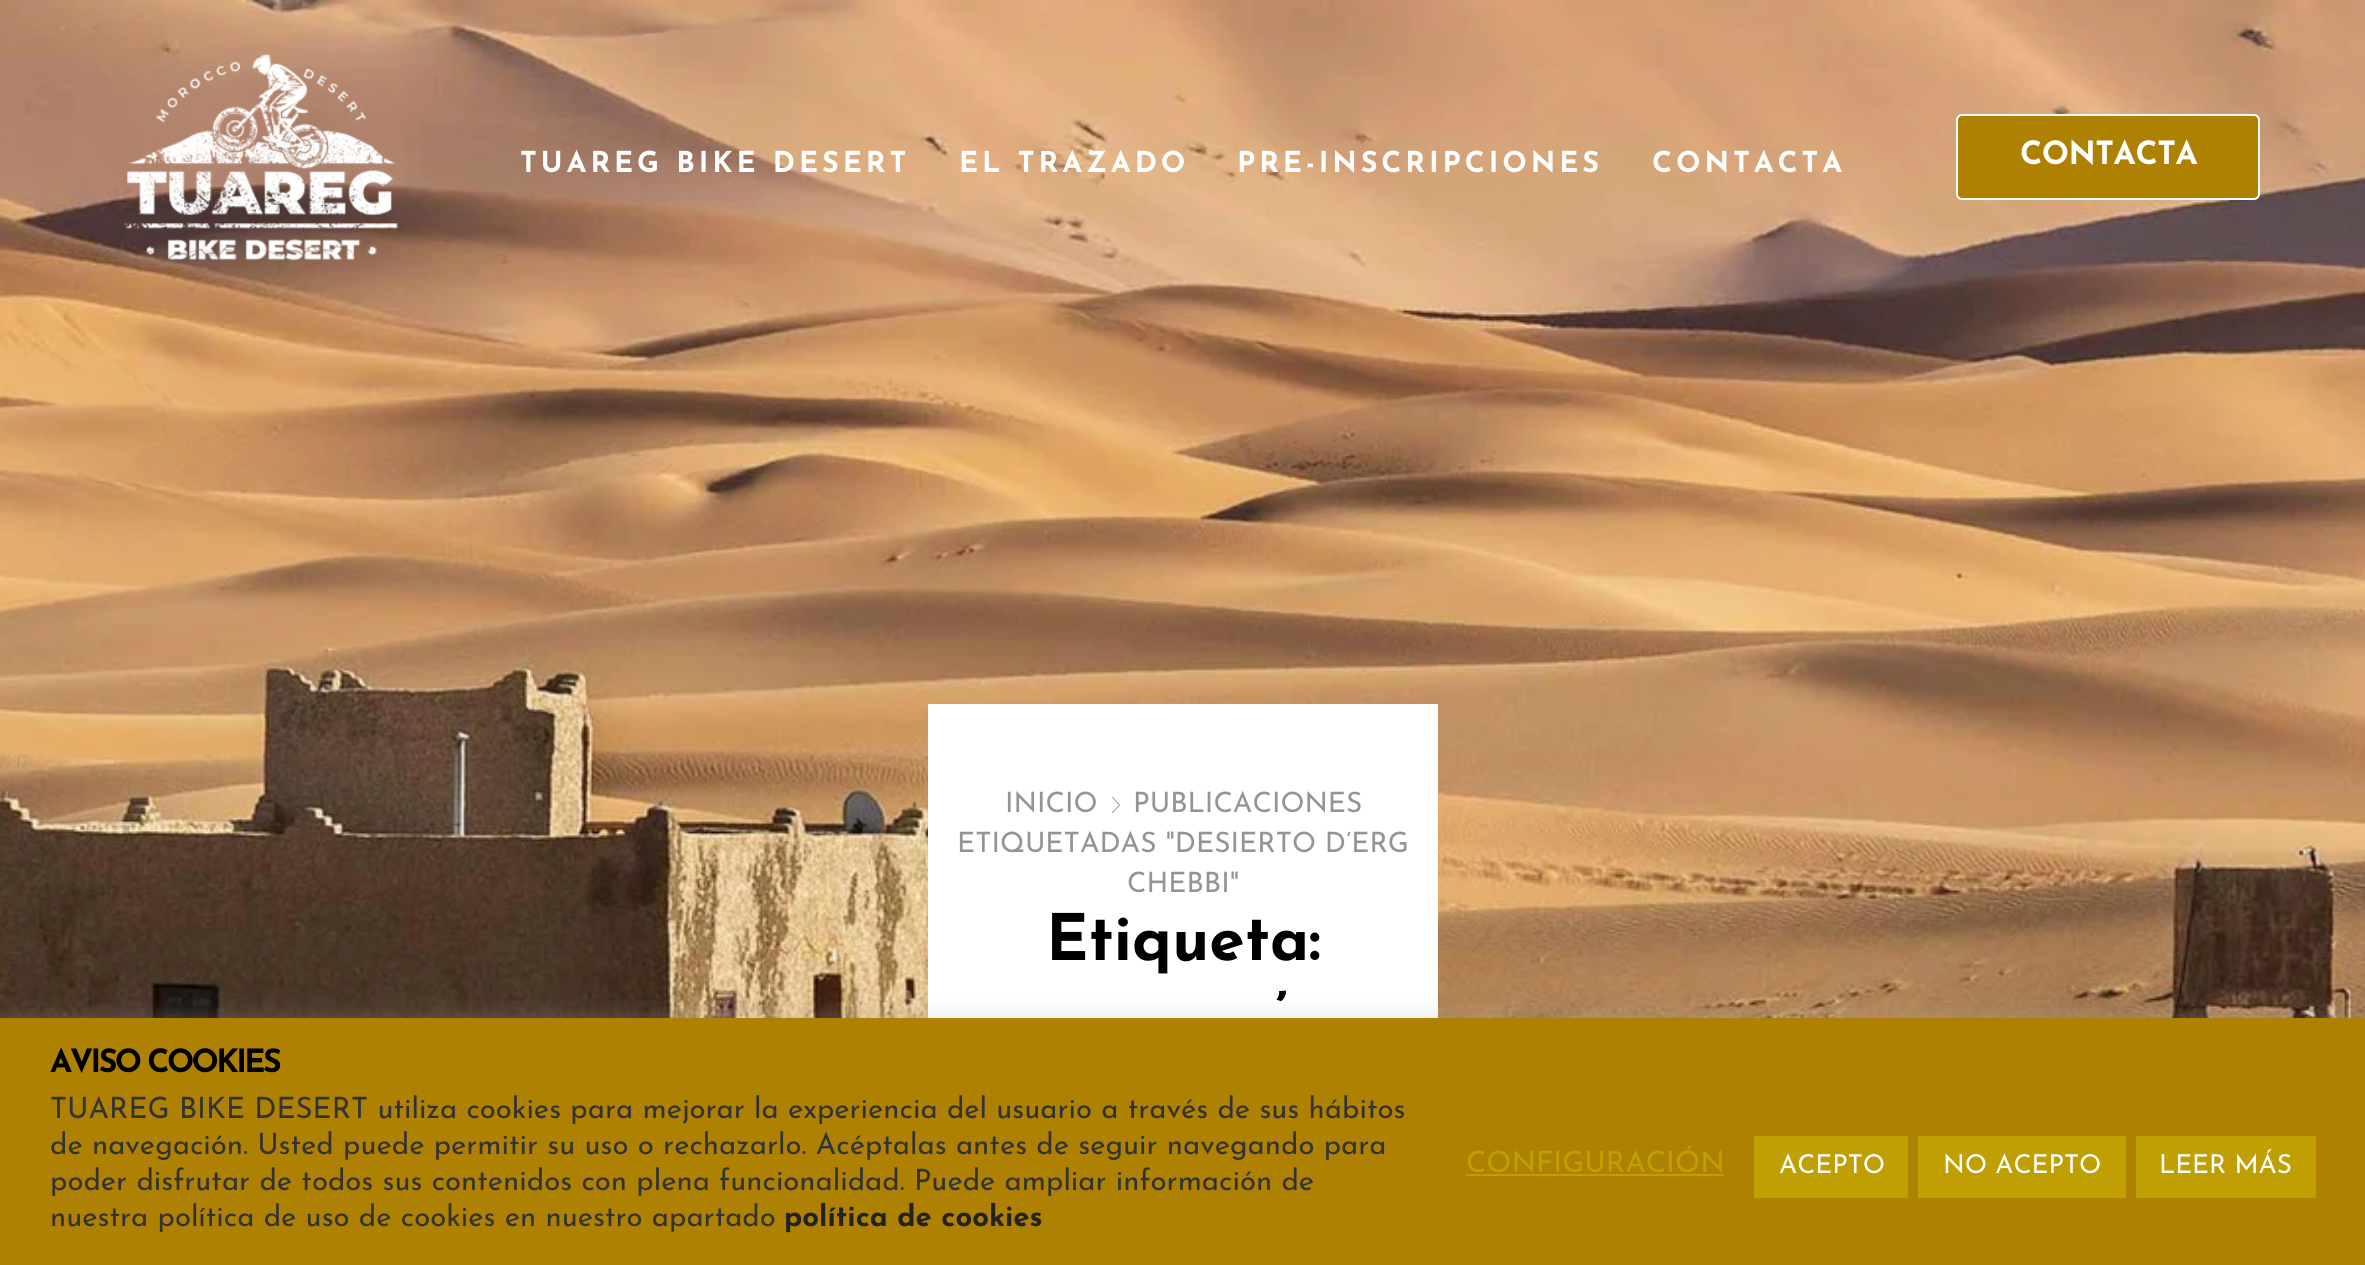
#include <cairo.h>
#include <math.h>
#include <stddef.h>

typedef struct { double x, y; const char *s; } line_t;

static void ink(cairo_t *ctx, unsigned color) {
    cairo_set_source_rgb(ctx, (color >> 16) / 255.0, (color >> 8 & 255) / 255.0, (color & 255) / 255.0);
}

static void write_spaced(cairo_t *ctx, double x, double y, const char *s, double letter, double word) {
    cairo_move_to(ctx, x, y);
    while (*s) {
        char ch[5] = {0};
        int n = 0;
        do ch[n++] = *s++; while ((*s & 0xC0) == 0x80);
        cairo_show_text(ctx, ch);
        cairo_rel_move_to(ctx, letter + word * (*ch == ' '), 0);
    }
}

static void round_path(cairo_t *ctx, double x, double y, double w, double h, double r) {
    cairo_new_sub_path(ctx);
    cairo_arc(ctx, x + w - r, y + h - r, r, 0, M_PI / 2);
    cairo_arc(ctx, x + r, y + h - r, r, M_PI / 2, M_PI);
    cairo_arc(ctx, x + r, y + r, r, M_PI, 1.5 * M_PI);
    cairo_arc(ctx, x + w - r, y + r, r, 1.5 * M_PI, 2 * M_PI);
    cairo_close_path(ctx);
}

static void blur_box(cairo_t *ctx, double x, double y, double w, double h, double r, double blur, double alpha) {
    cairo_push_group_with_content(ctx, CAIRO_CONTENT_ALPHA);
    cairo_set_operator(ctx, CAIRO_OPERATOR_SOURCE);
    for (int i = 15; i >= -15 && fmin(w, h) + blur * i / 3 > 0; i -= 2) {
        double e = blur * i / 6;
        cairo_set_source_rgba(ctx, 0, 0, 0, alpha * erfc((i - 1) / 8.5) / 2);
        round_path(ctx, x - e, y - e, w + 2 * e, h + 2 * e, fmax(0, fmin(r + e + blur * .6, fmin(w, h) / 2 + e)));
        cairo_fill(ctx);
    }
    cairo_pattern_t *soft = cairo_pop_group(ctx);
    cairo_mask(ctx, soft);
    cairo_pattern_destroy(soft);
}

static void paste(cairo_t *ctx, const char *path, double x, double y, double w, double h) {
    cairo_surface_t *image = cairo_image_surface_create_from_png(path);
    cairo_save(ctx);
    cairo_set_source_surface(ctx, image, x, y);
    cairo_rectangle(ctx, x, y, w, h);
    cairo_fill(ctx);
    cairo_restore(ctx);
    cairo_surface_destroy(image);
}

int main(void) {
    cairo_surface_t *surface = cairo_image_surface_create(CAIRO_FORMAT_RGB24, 2365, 1265);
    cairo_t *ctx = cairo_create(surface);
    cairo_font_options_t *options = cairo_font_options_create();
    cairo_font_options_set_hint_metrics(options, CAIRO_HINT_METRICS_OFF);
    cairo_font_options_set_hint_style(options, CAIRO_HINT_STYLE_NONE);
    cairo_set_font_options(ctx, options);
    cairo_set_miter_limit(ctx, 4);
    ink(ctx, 0xFFFFFF);
    cairo_paint(ctx);
    paste(ctx, "media/2.png", 0, 0, 2365, 1018);
    paste(ctx, "media/1.png", 124, 53, 274, 208);
    cairo_select_font_face(ctx, "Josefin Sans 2 Thin", CAIRO_FONT_SLANT_NORMAL, CAIRO_FONT_WEIGHT_NORMAL);
    cairo_set_font_size(ctx, 28.8);
    ink(ctx, 0xFFFFFF);
    {
        static const line_t items[] = {
            {520, 172, "TUAREG BIKE DESERT"},
            {959, 172, "EL TRAZADO"},
            {1237, 172, "PRE-INSCRIPCIONES"},
            {1652, 172, "CONTACTA"},
        };
        for (size_t i = 0; i < sizeof items / sizeof *items; i++) {
            write_spaced(ctx, items[i].x, items[i].y, items[i].s, 3.9, 0);
        }
    }
    ink(ctx, 0xAF8102);
    round_path(ctx, 1957, 115, 302, 84, 5);
    cairo_fill_preserve(ctx);
    ink(ctx, 0xFFFFFF);
    cairo_stroke(ctx);
    cairo_set_font_size(ctx, 32);
    write_spaced(ctx, 2020, 164, "CONTACTA", -0.5, 0);
    cairo_rectangle(ctx, 928, 704, 510, 314);
    cairo_fill(ctx);
    cairo_select_font_face(ctx, "Josefin Sans Thin", CAIRO_FONT_SLANT_NORMAL, CAIRO_FONT_WEIGHT_NORMAL);
    cairo_set_font_size(ctx, 28);
    ink(ctx, 0x949494);
    cairo_move_to(ctx, 1005, 812);
    cairo_show_text(ctx, "INICIO");
    paste(ctx, "media/3.png", 1112, 797, 8, 16);
    {
        static const line_t items[] = {
            {1133, 812, "PUBLICACIONES"},
            {957, 852, "ETIQUETADAS \"DESIERTO D’ERG"},
            {1127, 892, "CHEBBI\""},
        };
        for (size_t i = 0; i < sizeof items / sizeof *items; i++) {
            cairo_move_to(ctx, items[i].x, items[i].y);
            cairo_show_text(ctx, items[i].s);
        }
    }
    cairo_select_font_face(ctx, "Josefin Sans 2 Thin", CAIRO_FONT_SLANT_NORMAL, CAIRO_FONT_WEIGHT_NORMAL);
    cairo_set_font_size(ctx, 64);
    ink(ctx, 0x000000);
    cairo_move_to(ctx, 1046, 960);
    cairo_show_text(ctx, "Etiqueta:");
    cairo_move_to(ctx, 1275, 1037);
    cairo_show_text(ctx, "’");
    ink(ctx, 0xACABAB);
    blur_box(ctx, 0, 1016, 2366, 248, 0, 10, 0.3);
    ink(ctx, 0xAF8102);
    cairo_rectangle(ctx, 0, 1018, 2365, 247);
    cairo_fill(ctx);
    cairo_set_font_size(ctx, 32);
    ink(ctx, 0x000000);
    write_spaced(ctx, 50, 1072, "AVISO COOKIES", -2.6, 0);
    cairo_select_font_face(ctx, "Josefin Sans Thin", CAIRO_FONT_SLANT_NORMAL, CAIRO_FONT_WEIGHT_NORMAL);
    cairo_set_font_size(ctx, 29.35);
    ink(ctx, 0x333333);
    {
        static const line_t items[] = {
            {50, 1118, "TUAREG BIKE DESERT utiliza cookies para mejorar la experiencia del usuario a través de sus hábitos"},
            {50, 1154, "de navegación. Usted puede permitir su uso o rechazarlo. Acéptalas antes de seguir navegando para"},
            {50, 1190, "poder disfrutar de todos sus contenidos con plena funcionalidad. Puede ampliar información de"},
            {50, 1226, "nuestra política de uso de cookies en nuestro apartado"},
        };
        for (size_t i = 0; i < sizeof items / sizeof *items; i++) {
            cairo_move_to(ctx, items[i].x, items[i].y);
            cairo_show_text(ctx, items[i].s);
        }
    }
    cairo_select_font_face(ctx, "Josefin Sans 2 Thin", CAIRO_FONT_SLANT_NORMAL, CAIRO_FONT_WEIGHT_NORMAL);
    ink(ctx, 0x222222);
    cairo_move_to(ctx, 784, 1226);
    cairo_show_text(ctx, "política de cookies");
    cairo_select_font_face(ctx, "Josefin Sans Thin", CAIRO_FONT_SLANT_NORMAL, CAIRO_FONT_WEIGHT_NORMAL);
    ink(ctx, 0xBF9F01);
    cairo_move_to(ctx, 1466, 1172);
    cairo_show_text(ctx, "CONFIGURACIÓN");
    cairo_rectangle(ctx, 1466, 1174, 258, 2);
    cairo_fill(ctx);
    cairo_rectangle(ctx, 1754, 1136, 154, 62);
    cairo_fill(ctx);
    cairo_set_font_size(ctx, 26);
    ink(ctx, 0xFFFFFF);
    cairo_move_to(ctx, 1779, 1173);
    cairo_show_text(ctx, "ACEPTO");
    ink(ctx, 0xBF9F01);
    cairo_rectangle(ctx, 1918, 1136, 208, 62);
    cairo_fill(ctx);
    ink(ctx, 0xFFFFFF);
    cairo_move_to(ctx, 1943, 1173);
    cairo_show_text(ctx, "NO ACEPTO");
    ink(ctx, 0xBF9F01);
    cairo_rectangle(ctx, 2136, 1136, 180, 62);
    cairo_fill(ctx);
    ink(ctx, 0xFFFFFF);
    cairo_move_to(ctx, 2159, 1173);
    cairo_show_text(ctx, "LEER MÁS");
    cairo_surface_write_to_png(surface, "image.png");
    cairo_font_options_destroy(options);
    cairo_destroy(ctx);
    cairo_surface_destroy(surface);
    return 0;
}
